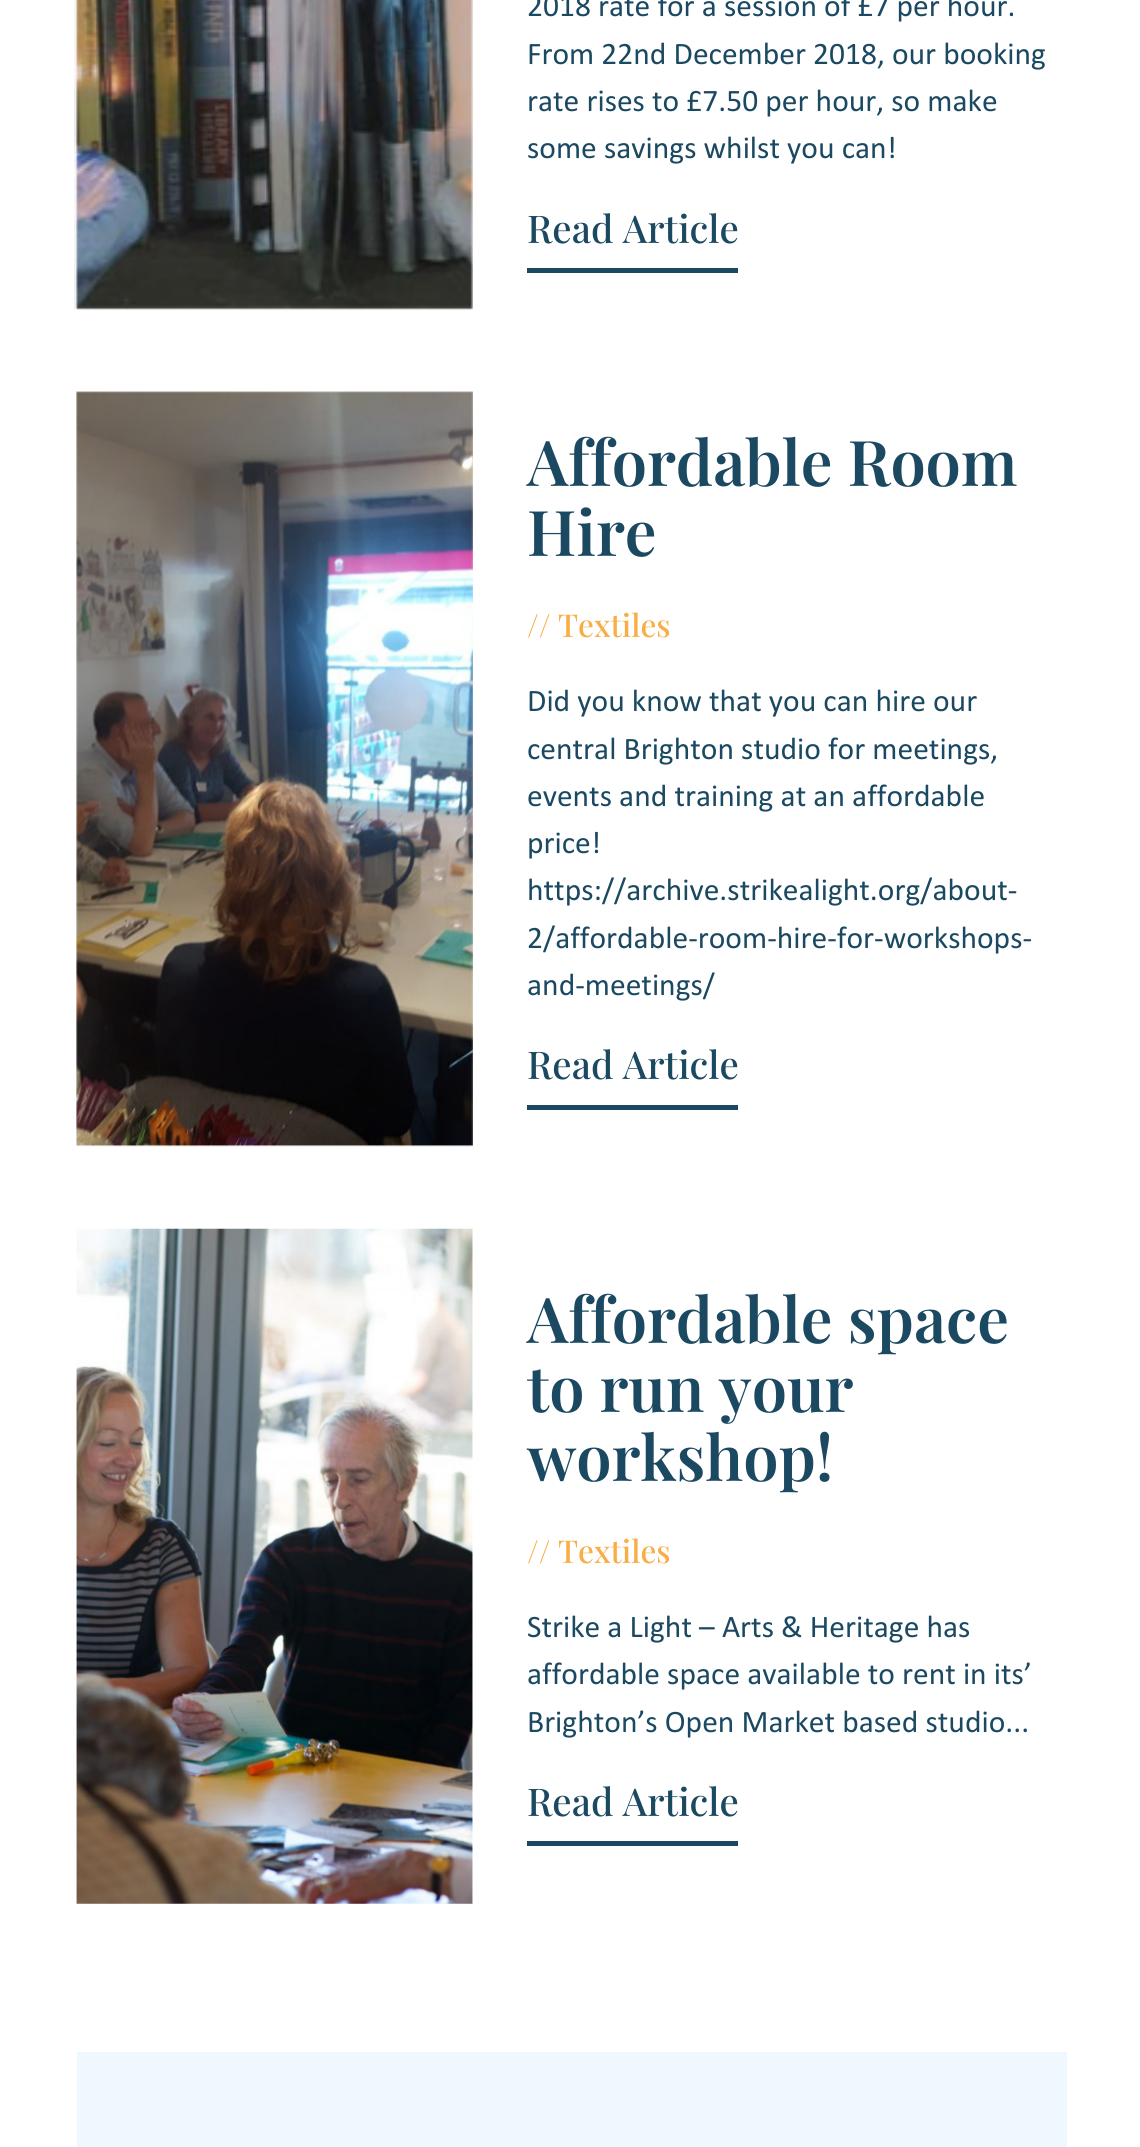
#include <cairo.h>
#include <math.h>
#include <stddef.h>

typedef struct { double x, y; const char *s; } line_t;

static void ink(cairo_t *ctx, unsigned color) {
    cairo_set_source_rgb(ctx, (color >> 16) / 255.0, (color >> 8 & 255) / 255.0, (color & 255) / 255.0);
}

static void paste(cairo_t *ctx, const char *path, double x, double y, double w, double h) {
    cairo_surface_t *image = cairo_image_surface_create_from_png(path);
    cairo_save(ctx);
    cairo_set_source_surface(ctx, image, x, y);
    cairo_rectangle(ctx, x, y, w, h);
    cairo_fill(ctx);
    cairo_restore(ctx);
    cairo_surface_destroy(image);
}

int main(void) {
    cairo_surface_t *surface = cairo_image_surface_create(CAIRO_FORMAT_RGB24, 1140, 2147);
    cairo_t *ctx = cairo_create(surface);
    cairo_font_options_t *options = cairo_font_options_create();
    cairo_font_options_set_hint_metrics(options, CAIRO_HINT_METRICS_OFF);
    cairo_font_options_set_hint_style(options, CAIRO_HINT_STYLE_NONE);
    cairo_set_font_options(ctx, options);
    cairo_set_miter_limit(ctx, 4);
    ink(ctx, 0xFFFFFF);
    cairo_paint(ctx);
    paste(ctx, "media/1.png", 74, 0, 399, 310);
    cairo_select_font_face(ctx, "Calibri", CAIRO_FONT_SLANT_NORMAL, CAIRO_FONT_WEIGHT_NORMAL);
    cairo_set_font_size(ctx, 31.5);
    ink(ctx, 0x1B4962);
    {
        static const line_t items[] = {
            {527, 16, "2018 rate for a session of £7 per hour."},
            {527, 64, "From 22nd December 2018, our booking"},
            {527, 111, "rate rises to £7.50 per hour, so make"},
            {527, 158, "some savings whilst you can!"},
        };
        for (size_t i = 0; i < sizeof items / sizeof *items; i++) {
            cairo_move_to(ctx, items[i].x, items[i].y);
            cairo_show_text(ctx, items[i].s);
        }
    }
    cairo_rectangle(ctx, 527, 268, 211, 5);
    cairo_fill(ctx);
    cairo_select_font_face(ctx, "Playfair Display Medium", CAIRO_FONT_SLANT_NORMAL, CAIRO_FONT_WEIGHT_NORMAL);
    cairo_set_font_size(ctx, 38.25);
    cairo_move_to(ctx, 527, 243);
    cairo_show_text(ctx, "Read Article");
    paste(ctx, "media/2.png", 76, 391, 397, 756);
    cairo_select_font_face(ctx, "Playfair Display SemiBold", CAIRO_FONT_SLANT_NORMAL, CAIRO_FONT_WEIGHT_NORMAL);
    cairo_set_font_size(ctx, 63);
    cairo_move_to(ctx, 527, 486);
    cairo_show_text(ctx, "Affordable Room");
    cairo_move_to(ctx, 527, 556);
    cairo_show_text(ctx, "Hire");
    cairo_select_font_face(ctx, "Playfair Display Medium", CAIRO_FONT_SLANT_NORMAL, CAIRO_FONT_WEIGHT_NORMAL);
    cairo_set_font_size(ctx, 31.5);
    ink(ctx, 0xF8AD45);
    cairo_move_to(ctx, 527, 637);
    cairo_show_text(ctx, "// Textiles");
    cairo_select_font_face(ctx, "Calibri", CAIRO_FONT_SLANT_NORMAL, CAIRO_FONT_WEIGHT_NORMAL);
    ink(ctx, 0x1B4962);
    {
        static const line_t items[] = {
            {527, 711, "Did you know that you can hire our"},
            {527, 759, "central Brighton studio for meetings,"},
            {527, 806, "events and training at an affordable"},
            {527, 853, "price!"},
            {527, 900, "https://archive.strikealight.org/about-"},
            {527, 948, "2/affordable-room-hire-for-workshops-"},
            {527, 995, "and-meetings/"},
        };
        for (size_t i = 0; i < sizeof items / sizeof *items; i++) {
            cairo_move_to(ctx, items[i].x, items[i].y);
            cairo_show_text(ctx, items[i].s);
        }
    }
    cairo_rectangle(ctx, 527, 1105, 211, 5);
    cairo_fill(ctx);
    cairo_select_font_face(ctx, "Playfair Display Medium", CAIRO_FONT_SLANT_NORMAL, CAIRO_FONT_WEIGHT_NORMAL);
    cairo_set_font_size(ctx, 38.25);
    cairo_move_to(ctx, 527, 1079);
    cairo_show_text(ctx, "Read Article");
    paste(ctx, "media/3.png", 76, 1228, 397, 676);
    cairo_select_font_face(ctx, "Playfair Display SemiBold", CAIRO_FONT_SLANT_NORMAL, CAIRO_FONT_WEIGHT_NORMAL);
    cairo_set_font_size(ctx, 63);
    {
        static const line_t items[] = {
            {527, 1343, "Affordable space"},
            {527, 1412, "to run your"},
            {527, 1481, "workshop!"},
        };
        for (size_t i = 0; i < sizeof items / sizeof *items; i++) {
            cairo_move_to(ctx, items[i].x, items[i].y);
            cairo_show_text(ctx, items[i].s);
        }
    }
    cairo_select_font_face(ctx, "Playfair Display Medium", CAIRO_FONT_SLANT_NORMAL, CAIRO_FONT_WEIGHT_NORMAL);
    cairo_set_font_size(ctx, 31.5);
    ink(ctx, 0xF8AD45);
    cairo_move_to(ctx, 527, 1563);
    cairo_show_text(ctx, "// Textiles");
    cairo_select_font_face(ctx, "Calibri", CAIRO_FONT_SLANT_NORMAL, CAIRO_FONT_WEIGHT_NORMAL);
    ink(ctx, 0x1B4962);
    {
        static const line_t items[] = {
            {527, 1637, "Strike a Light – Arts & Heritage has"},
            {527, 1684, "affordable space available to rent in its’"},
            {527, 1732, "Brighton’s Open Market based studio..."},
        };
        for (size_t i = 0; i < sizeof items / sizeof *items; i++) {
            cairo_move_to(ctx, items[i].x, items[i].y);
            cairo_show_text(ctx, items[i].s);
        }
    }
    cairo_rectangle(ctx, 527, 1841, 211, 5);
    cairo_fill(ctx);
    cairo_select_font_face(ctx, "Playfair Display Medium", CAIRO_FONT_SLANT_NORMAL, CAIRO_FONT_WEIGHT_NORMAL);
    cairo_set_font_size(ctx, 38.25);
    cairo_move_to(ctx, 527, 1816);
    cairo_show_text(ctx, "Read Article");
    ink(ctx, 0xF0F8FF);
    cairo_rectangle(ctx, 77, 2052, 990, 95);
    cairo_fill(ctx);
    cairo_surface_write_to_png(surface, "image.png");
    cairo_font_options_destroy(options);
    cairo_destroy(ctx);
    cairo_surface_destroy(surface);
    return 0;
}
